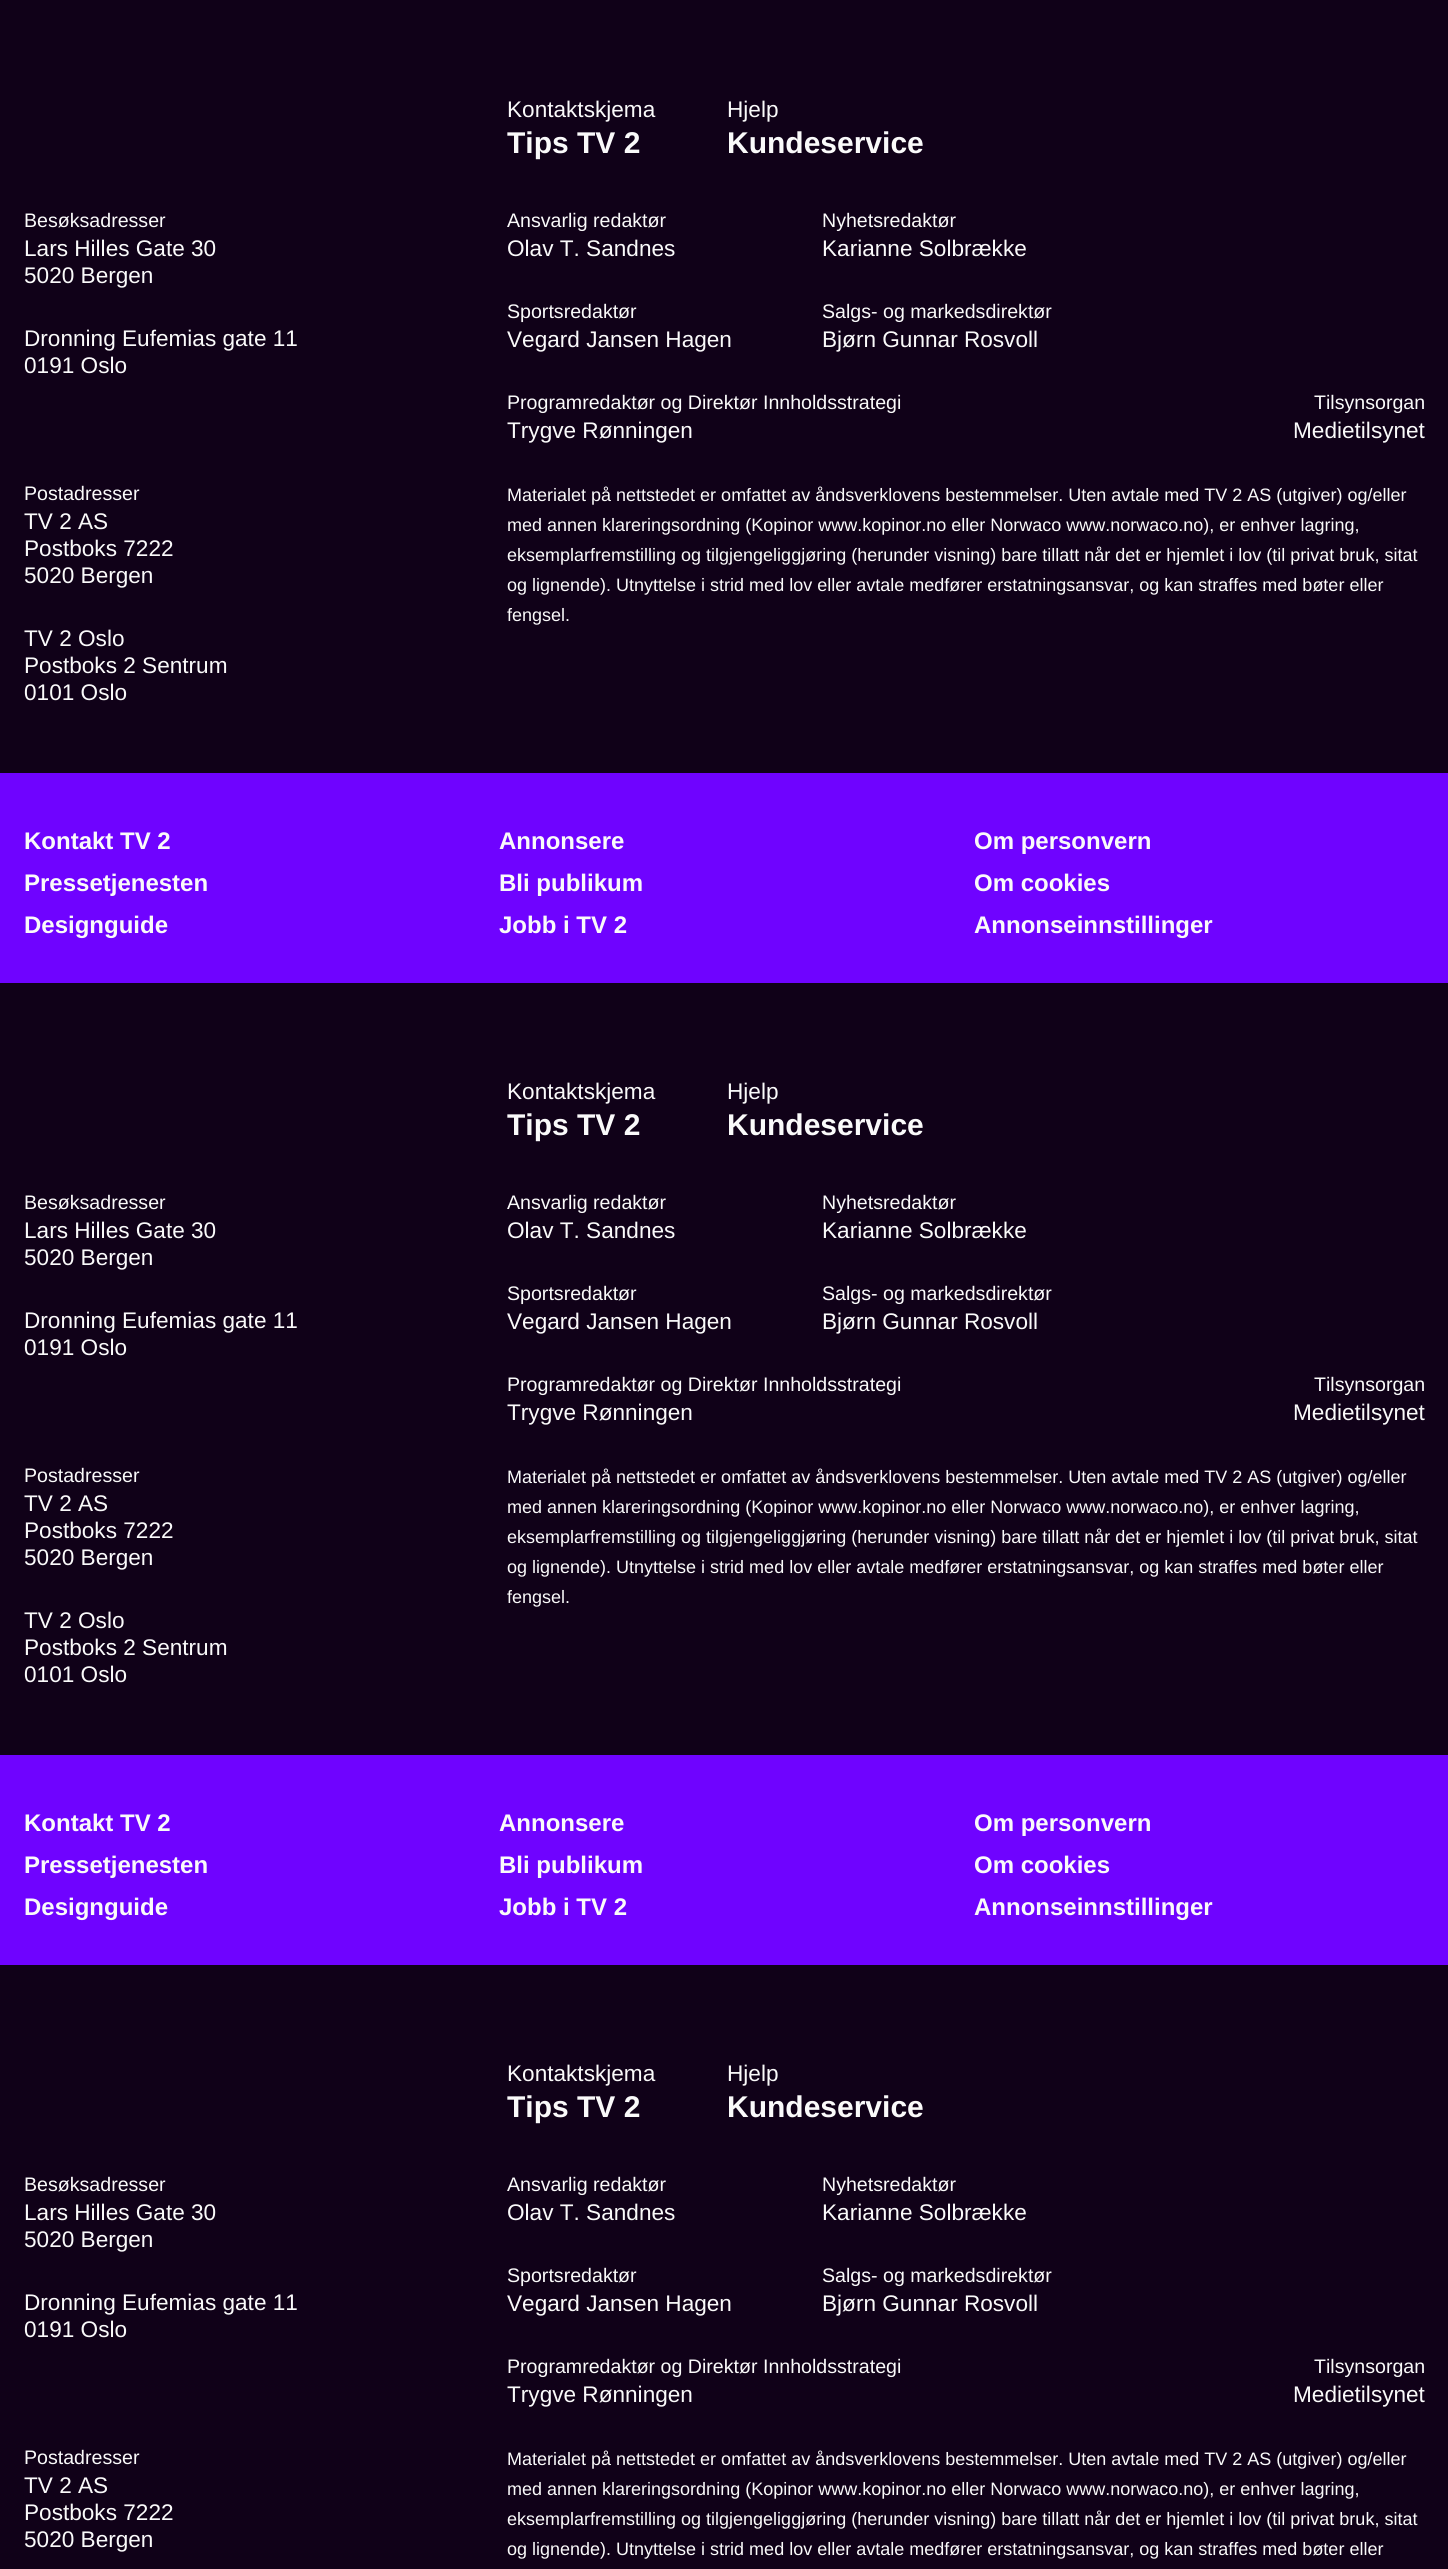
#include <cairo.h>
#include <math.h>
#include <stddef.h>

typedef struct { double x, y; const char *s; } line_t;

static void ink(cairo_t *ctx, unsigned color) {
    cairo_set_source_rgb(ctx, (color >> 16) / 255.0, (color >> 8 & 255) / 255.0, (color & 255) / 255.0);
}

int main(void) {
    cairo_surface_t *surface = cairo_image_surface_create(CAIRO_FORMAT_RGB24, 1448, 2569);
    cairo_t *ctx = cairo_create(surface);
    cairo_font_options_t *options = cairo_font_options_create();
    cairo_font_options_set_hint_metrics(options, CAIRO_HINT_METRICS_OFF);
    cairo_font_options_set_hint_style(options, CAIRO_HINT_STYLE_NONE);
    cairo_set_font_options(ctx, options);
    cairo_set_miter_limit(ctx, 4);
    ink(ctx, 0x6F03FF);
    cairo_paint(ctx);
    ink(ctx, 0x100118);
    cairo_rectangle(ctx, 0, 0, 1448, 773);
    cairo_fill(ctx);
    cairo_select_font_face(ctx, "Liberation Sans", CAIRO_FONT_SLANT_NORMAL, CAIRO_FONT_WEIGHT_NORMAL);
    cairo_set_font_size(ctx, 22.6);
    ink(ctx, 0xFAFAFA);
    cairo_move_to(ctx, 507, 117);
    cairo_show_text(ctx, "Kontaktskjema");
    cairo_select_font_face(ctx, "Liberation Sans", CAIRO_FONT_SLANT_NORMAL, CAIRO_FONT_WEIGHT_BOLD);
    cairo_set_font_size(ctx, 30);
    cairo_move_to(ctx, 507, 153);
    cairo_show_text(ctx, "Tips TV 2");
    cairo_select_font_face(ctx, "Liberation Sans", CAIRO_FONT_SLANT_NORMAL, CAIRO_FONT_WEIGHT_NORMAL);
    cairo_set_font_size(ctx, 22.6);
    cairo_move_to(ctx, 727, 117);
    cairo_show_text(ctx, "Hjelp");
    cairo_select_font_face(ctx, "Liberation Sans", CAIRO_FONT_SLANT_NORMAL, CAIRO_FONT_WEIGHT_BOLD);
    cairo_set_font_size(ctx, 30);
    cairo_move_to(ctx, 727, 153);
    cairo_show_text(ctx, "Kundeservice");
    cairo_select_font_face(ctx, "Liberation Sans", CAIRO_FONT_SLANT_NORMAL, CAIRO_FONT_WEIGHT_NORMAL);
    cairo_set_font_size(ctx, 19.6);
    cairo_move_to(ctx, 24, 227);
    cairo_show_text(ctx, "Besøksadresser");
    cairo_set_font_size(ctx, 22.6);
    {
        static const line_t items[] = {
            {24, 256, "Lars Hilles Gate 30"},
            {24, 283, "5020 Bergen"},
            {24, 346, "Dronning Eufemias gate 11"},
            {24, 373, "0191 Oslo"},
        };
        for (size_t i = 0; i < sizeof items / sizeof *items; i++) {
            cairo_move_to(ctx, items[i].x, items[i].y);
            cairo_show_text(ctx, items[i].s);
        }
    }
    cairo_set_font_size(ctx, 19.6);
    cairo_move_to(ctx, 507, 227);
    cairo_show_text(ctx, "Ansvarlig redaktør");
    cairo_set_font_size(ctx, 22.6);
    cairo_move_to(ctx, 507, 256);
    cairo_show_text(ctx, "Olav T. Sandnes");
    cairo_set_font_size(ctx, 19.6);
    cairo_move_to(ctx, 822, 227);
    cairo_show_text(ctx, "Nyhetsredaktør");
    cairo_set_font_size(ctx, 22.6);
    cairo_move_to(ctx, 822, 256);
    cairo_show_text(ctx, "Karianne Solbrække");
    cairo_set_font_size(ctx, 19.6);
    cairo_move_to(ctx, 507, 318);
    cairo_show_text(ctx, "Sportsredaktør");
    cairo_set_font_size(ctx, 22.6);
    cairo_move_to(ctx, 507, 347);
    cairo_show_text(ctx, "Vegard Jansen Hagen");
    cairo_set_font_size(ctx, 19.6);
    cairo_move_to(ctx, 822, 318);
    cairo_show_text(ctx, "Salgs- og markedsdirektør");
    cairo_set_font_size(ctx, 22.6);
    cairo_move_to(ctx, 822, 347);
    cairo_show_text(ctx, "Bjørn Gunnar Rosvoll");
    cairo_set_font_size(ctx, 19.6);
    cairo_move_to(ctx, 507, 409);
    cairo_show_text(ctx, "Programredaktør og Direktør Innholdsstrategi");
    cairo_set_font_size(ctx, 22.6);
    cairo_move_to(ctx, 507, 438);
    cairo_show_text(ctx, "Trygve Rønningen");
    cairo_set_font_size(ctx, 19.6);
    cairo_move_to(ctx, 1314, 409);
    cairo_show_text(ctx, "Tilsynsorgan");
    cairo_set_font_size(ctx, 22.6);
    cairo_move_to(ctx, 1293, 438);
    cairo_show_text(ctx, "Medietilsynet");
    cairo_set_font_size(ctx, 19.6);
    cairo_move_to(ctx, 24, 500);
    cairo_show_text(ctx, "Postadresser");
    cairo_set_font_size(ctx, 22.6);
    {
        static const line_t items[] = {
            {24, 529, "TV 2 AS"},
            {24, 556, "Postboks 7222"},
            {24, 583, "5020 Bergen"},
            {24, 646, "TV 2 Oslo"},
            {24, 673, "Postboks 2 Sentrum"},
            {24, 700, "0101 Oslo"},
        };
        for (size_t i = 0; i < sizeof items / sizeof *items; i++) {
            cairo_move_to(ctx, items[i].x, items[i].y);
            cairo_show_text(ctx, items[i].s);
        }
    }
    cairo_set_font_size(ctx, 18);
    {
        static const line_t items[] = {
            {507, 501, "Materialet på nettstedet er omfattet av åndsverklovens bestemmelser. Uten avtale med TV 2 AS (utgiver) og/eller"},
            {507, 531, "med annen klareringsordning (Kopinor www.kopinor.no eller Norwaco www.norwaco.no), er enhver lagring,"},
            {507, 561, "eksemplarfremstilling og tilgjengeliggjøring (herunder visning) bare tillatt når det er hjemlet i lov (til privat bruk, sitat"},
            {507, 591, "og lignende). Utnyttelse i strid med lov eller avtale medfører erstatningsansvar, og kan straffes med bøter eller"},
            {507, 621, "fengsel."},
        };
        for (size_t i = 0; i < sizeof items / sizeof *items; i++) {
            cairo_move_to(ctx, items[i].x, items[i].y);
            cairo_show_text(ctx, items[i].s);
        }
    }
    cairo_select_font_face(ctx, "Liberation Sans", CAIRO_FONT_SLANT_NORMAL, CAIRO_FONT_WEIGHT_BOLD);
    cairo_set_font_size(ctx, 24);
    {
        static const line_t items[] = {
            {24, 849, "Kontakt TV 2"},
            {499, 849, "Annonsere"},
            {974, 849, "Om personvern"},
            {24, 891, "Pressetjenesten"},
            {499, 891, "Bli publikum"},
            {974, 891, "Om cookies"},
            {24, 933, "Designguide"},
            {499, 933, "Jobb i TV 2"},
            {974, 933, "Annonseinnstillinger"},
        };
        for (size_t i = 0; i < sizeof items / sizeof *items; i++) {
            cairo_move_to(ctx, items[i].x, items[i].y);
            cairo_show_text(ctx, items[i].s);
        }
    }
    ink(ctx, 0x100118);
    cairo_rectangle(ctx, 0, 983, 1448, 772);
    cairo_fill(ctx);
    cairo_select_font_face(ctx, "Liberation Sans", CAIRO_FONT_SLANT_NORMAL, CAIRO_FONT_WEIGHT_NORMAL);
    cairo_set_font_size(ctx, 22.6);
    ink(ctx, 0xFAFAFA);
    cairo_move_to(ctx, 507, 1099);
    cairo_show_text(ctx, "Kontaktskjema");
    cairo_select_font_face(ctx, "Liberation Sans", CAIRO_FONT_SLANT_NORMAL, CAIRO_FONT_WEIGHT_BOLD);
    cairo_set_font_size(ctx, 30);
    cairo_move_to(ctx, 507, 1135);
    cairo_show_text(ctx, "Tips TV 2");
    cairo_select_font_face(ctx, "Liberation Sans", CAIRO_FONT_SLANT_NORMAL, CAIRO_FONT_WEIGHT_NORMAL);
    cairo_set_font_size(ctx, 22.6);
    cairo_move_to(ctx, 727, 1099);
    cairo_show_text(ctx, "Hjelp");
    cairo_select_font_face(ctx, "Liberation Sans", CAIRO_FONT_SLANT_NORMAL, CAIRO_FONT_WEIGHT_BOLD);
    cairo_set_font_size(ctx, 30);
    cairo_move_to(ctx, 727, 1135);
    cairo_show_text(ctx, "Kundeservice");
    cairo_select_font_face(ctx, "Liberation Sans", CAIRO_FONT_SLANT_NORMAL, CAIRO_FONT_WEIGHT_NORMAL);
    cairo_set_font_size(ctx, 19.6);
    cairo_move_to(ctx, 24, 1209);
    cairo_show_text(ctx, "Besøksadresser");
    cairo_set_font_size(ctx, 22.6);
    {
        static const line_t items[] = {
            {24, 1238, "Lars Hilles Gate 30"},
            {24, 1265, "5020 Bergen"},
            {24, 1328, "Dronning Eufemias gate 11"},
            {24, 1355, "0191 Oslo"},
        };
        for (size_t i = 0; i < sizeof items / sizeof *items; i++) {
            cairo_move_to(ctx, items[i].x, items[i].y);
            cairo_show_text(ctx, items[i].s);
        }
    }
    cairo_set_font_size(ctx, 19.6);
    cairo_move_to(ctx, 507, 1209);
    cairo_show_text(ctx, "Ansvarlig redaktør");
    cairo_set_font_size(ctx, 22.6);
    cairo_move_to(ctx, 507, 1238);
    cairo_show_text(ctx, "Olav T. Sandnes");
    cairo_set_font_size(ctx, 19.6);
    cairo_move_to(ctx, 822, 1209);
    cairo_show_text(ctx, "Nyhetsredaktør");
    cairo_set_font_size(ctx, 22.6);
    cairo_move_to(ctx, 822, 1238);
    cairo_show_text(ctx, "Karianne Solbrække");
    cairo_set_font_size(ctx, 19.6);
    cairo_move_to(ctx, 507, 1300);
    cairo_show_text(ctx, "Sportsredaktør");
    cairo_set_font_size(ctx, 22.6);
    cairo_move_to(ctx, 507, 1329);
    cairo_show_text(ctx, "Vegard Jansen Hagen");
    cairo_set_font_size(ctx, 19.6);
    cairo_move_to(ctx, 822, 1300);
    cairo_show_text(ctx, "Salgs- og markedsdirektør");
    cairo_set_font_size(ctx, 22.6);
    cairo_move_to(ctx, 822, 1329);
    cairo_show_text(ctx, "Bjørn Gunnar Rosvoll");
    cairo_set_font_size(ctx, 19.6);
    cairo_move_to(ctx, 507, 1391);
    cairo_show_text(ctx, "Programredaktør og Direktør Innholdsstrategi");
    cairo_set_font_size(ctx, 22.6);
    cairo_move_to(ctx, 507, 1420);
    cairo_show_text(ctx, "Trygve Rønningen");
    cairo_set_font_size(ctx, 19.6);
    cairo_move_to(ctx, 1314, 1391);
    cairo_show_text(ctx, "Tilsynsorgan");
    cairo_set_font_size(ctx, 22.6);
    cairo_move_to(ctx, 1293, 1420);
    cairo_show_text(ctx, "Medietilsynet");
    cairo_set_font_size(ctx, 19.6);
    cairo_move_to(ctx, 24, 1482);
    cairo_show_text(ctx, "Postadresser");
    cairo_set_font_size(ctx, 22.6);
    {
        static const line_t items[] = {
            {24, 1511, "TV 2 AS"},
            {24, 1538, "Postboks 7222"},
            {24, 1565, "5020 Bergen"},
            {24, 1628, "TV 2 Oslo"},
            {24, 1655, "Postboks 2 Sentrum"},
            {24, 1682, "0101 Oslo"},
        };
        for (size_t i = 0; i < sizeof items / sizeof *items; i++) {
            cairo_move_to(ctx, items[i].x, items[i].y);
            cairo_show_text(ctx, items[i].s);
        }
    }
    cairo_set_font_size(ctx, 18);
    {
        static const line_t items[] = {
            {507, 1483, "Materialet på nettstedet er omfattet av åndsverklovens bestemmelser. Uten avtale med TV 2 AS (utgiver) og/eller"},
            {507, 1513, "med annen klareringsordning (Kopinor www.kopinor.no eller Norwaco www.norwaco.no), er enhver lagring,"},
            {507, 1543, "eksemplarfremstilling og tilgjengeliggjøring (herunder visning) bare tillatt når det er hjemlet i lov (til privat bruk, sitat"},
            {507, 1573, "og lignende). Utnyttelse i strid med lov eller avtale medfører erstatningsansvar, og kan straffes med bøter eller"},
            {507, 1603, "fengsel."},
        };
        for (size_t i = 0; i < sizeof items / sizeof *items; i++) {
            cairo_move_to(ctx, items[i].x, items[i].y);
            cairo_show_text(ctx, items[i].s);
        }
    }
    cairo_select_font_face(ctx, "Liberation Sans", CAIRO_FONT_SLANT_NORMAL, CAIRO_FONT_WEIGHT_BOLD);
    cairo_set_font_size(ctx, 24);
    {
        static const line_t items[] = {
            {24, 1831, "Kontakt TV 2"},
            {499, 1831, "Annonsere"},
            {974, 1831, "Om personvern"},
            {24, 1873, "Pressetjenesten"},
            {499, 1873, "Bli publikum"},
            {974, 1873, "Om cookies"},
            {24, 1915, "Designguide"},
            {499, 1915, "Jobb i TV 2"},
            {974, 1915, "Annonseinnstillinger"},
        };
        for (size_t i = 0; i < sizeof items / sizeof *items; i++) {
            cairo_move_to(ctx, items[i].x, items[i].y);
            cairo_show_text(ctx, items[i].s);
        }
    }
    ink(ctx, 0x100118);
    cairo_rectangle(ctx, 0, 1965, 1448, 604);
    cairo_fill(ctx);
    cairo_select_font_face(ctx, "Liberation Sans", CAIRO_FONT_SLANT_NORMAL, CAIRO_FONT_WEIGHT_NORMAL);
    cairo_set_font_size(ctx, 22.6);
    ink(ctx, 0xFAFAFA);
    cairo_move_to(ctx, 507, 2081);
    cairo_show_text(ctx, "Kontaktskjema");
    cairo_select_font_face(ctx, "Liberation Sans", CAIRO_FONT_SLANT_NORMAL, CAIRO_FONT_WEIGHT_BOLD);
    cairo_set_font_size(ctx, 30);
    cairo_move_to(ctx, 507, 2117);
    cairo_show_text(ctx, "Tips TV 2");
    cairo_select_font_face(ctx, "Liberation Sans", CAIRO_FONT_SLANT_NORMAL, CAIRO_FONT_WEIGHT_NORMAL);
    cairo_set_font_size(ctx, 22.6);
    cairo_move_to(ctx, 727, 2081);
    cairo_show_text(ctx, "Hjelp");
    cairo_select_font_face(ctx, "Liberation Sans", CAIRO_FONT_SLANT_NORMAL, CAIRO_FONT_WEIGHT_BOLD);
    cairo_set_font_size(ctx, 30);
    cairo_move_to(ctx, 727, 2117);
    cairo_show_text(ctx, "Kundeservice");
    cairo_select_font_face(ctx, "Liberation Sans", CAIRO_FONT_SLANT_NORMAL, CAIRO_FONT_WEIGHT_NORMAL);
    cairo_set_font_size(ctx, 19.6);
    cairo_move_to(ctx, 24, 2191);
    cairo_show_text(ctx, "Besøksadresser");
    cairo_set_font_size(ctx, 22.6);
    {
        static const line_t items[] = {
            {24, 2220, "Lars Hilles Gate 30"},
            {24, 2247, "5020 Bergen"},
            {24, 2310, "Dronning Eufemias gate 11"},
            {24, 2337, "0191 Oslo"},
        };
        for (size_t i = 0; i < sizeof items / sizeof *items; i++) {
            cairo_move_to(ctx, items[i].x, items[i].y);
            cairo_show_text(ctx, items[i].s);
        }
    }
    cairo_set_font_size(ctx, 19.6);
    cairo_move_to(ctx, 507, 2191);
    cairo_show_text(ctx, "Ansvarlig redaktør");
    cairo_set_font_size(ctx, 22.6);
    cairo_move_to(ctx, 507, 2220);
    cairo_show_text(ctx, "Olav T. Sandnes");
    cairo_set_font_size(ctx, 19.6);
    cairo_move_to(ctx, 822, 2191);
    cairo_show_text(ctx, "Nyhetsredaktør");
    cairo_set_font_size(ctx, 22.6);
    cairo_move_to(ctx, 822, 2220);
    cairo_show_text(ctx, "Karianne Solbrække");
    cairo_set_font_size(ctx, 19.6);
    cairo_move_to(ctx, 507, 2282);
    cairo_show_text(ctx, "Sportsredaktør");
    cairo_set_font_size(ctx, 22.6);
    cairo_move_to(ctx, 507, 2311);
    cairo_show_text(ctx, "Vegard Jansen Hagen");
    cairo_set_font_size(ctx, 19.6);
    cairo_move_to(ctx, 822, 2282);
    cairo_show_text(ctx, "Salgs- og markedsdirektør");
    cairo_set_font_size(ctx, 22.6);
    cairo_move_to(ctx, 822, 2311);
    cairo_show_text(ctx, "Bjørn Gunnar Rosvoll");
    cairo_set_font_size(ctx, 19.6);
    cairo_move_to(ctx, 507, 2373);
    cairo_show_text(ctx, "Programredaktør og Direktør Innholdsstrategi");
    cairo_set_font_size(ctx, 22.6);
    cairo_move_to(ctx, 507, 2402);
    cairo_show_text(ctx, "Trygve Rønningen");
    cairo_set_font_size(ctx, 19.6);
    cairo_move_to(ctx, 1314, 2373);
    cairo_show_text(ctx, "Tilsynsorgan");
    cairo_set_font_size(ctx, 22.6);
    cairo_move_to(ctx, 1293, 2402);
    cairo_show_text(ctx, "Medietilsynet");
    cairo_set_font_size(ctx, 19.6);
    cairo_move_to(ctx, 24, 2464);
    cairo_show_text(ctx, "Postadresser");
    cairo_set_font_size(ctx, 22.6);
    {
        static const line_t items[] = {
            {24, 2493, "TV 2 AS"},
            {24, 2520, "Postboks 7222"},
            {24, 2547, "5020 Bergen"},
        };
        for (size_t i = 0; i < sizeof items / sizeof *items; i++) {
            cairo_move_to(ctx, items[i].x, items[i].y);
            cairo_show_text(ctx, items[i].s);
        }
    }
    cairo_set_font_size(ctx, 18);
    {
        static const line_t items[] = {
            {507, 2465, "Materialet på nettstedet er omfattet av åndsverklovens bestemmelser. Uten avtale med TV 2 AS (utgiver) og/eller"},
            {507, 2495, "med annen klareringsordning (Kopinor www.kopinor.no eller Norwaco www.norwaco.no), er enhver lagring,"},
            {507, 2525, "eksemplarfremstilling og tilgjengeliggjøring (herunder visning) bare tillatt når det er hjemlet i lov (til privat bruk, sitat"},
            {507, 2555, "og lignende). Utnyttelse i strid med lov eller avtale medfører erstatningsansvar, og kan straffes med bøter eller"},
        };
        for (size_t i = 0; i < sizeof items / sizeof *items; i++) {
            cairo_move_to(ctx, items[i].x, items[i].y);
            cairo_show_text(ctx, items[i].s);
        }
    }
    cairo_surface_write_to_png(surface, "image.png");
    cairo_font_options_destroy(options);
    cairo_destroy(ctx);
    cairo_surface_destroy(surface);
    return 0;
}
